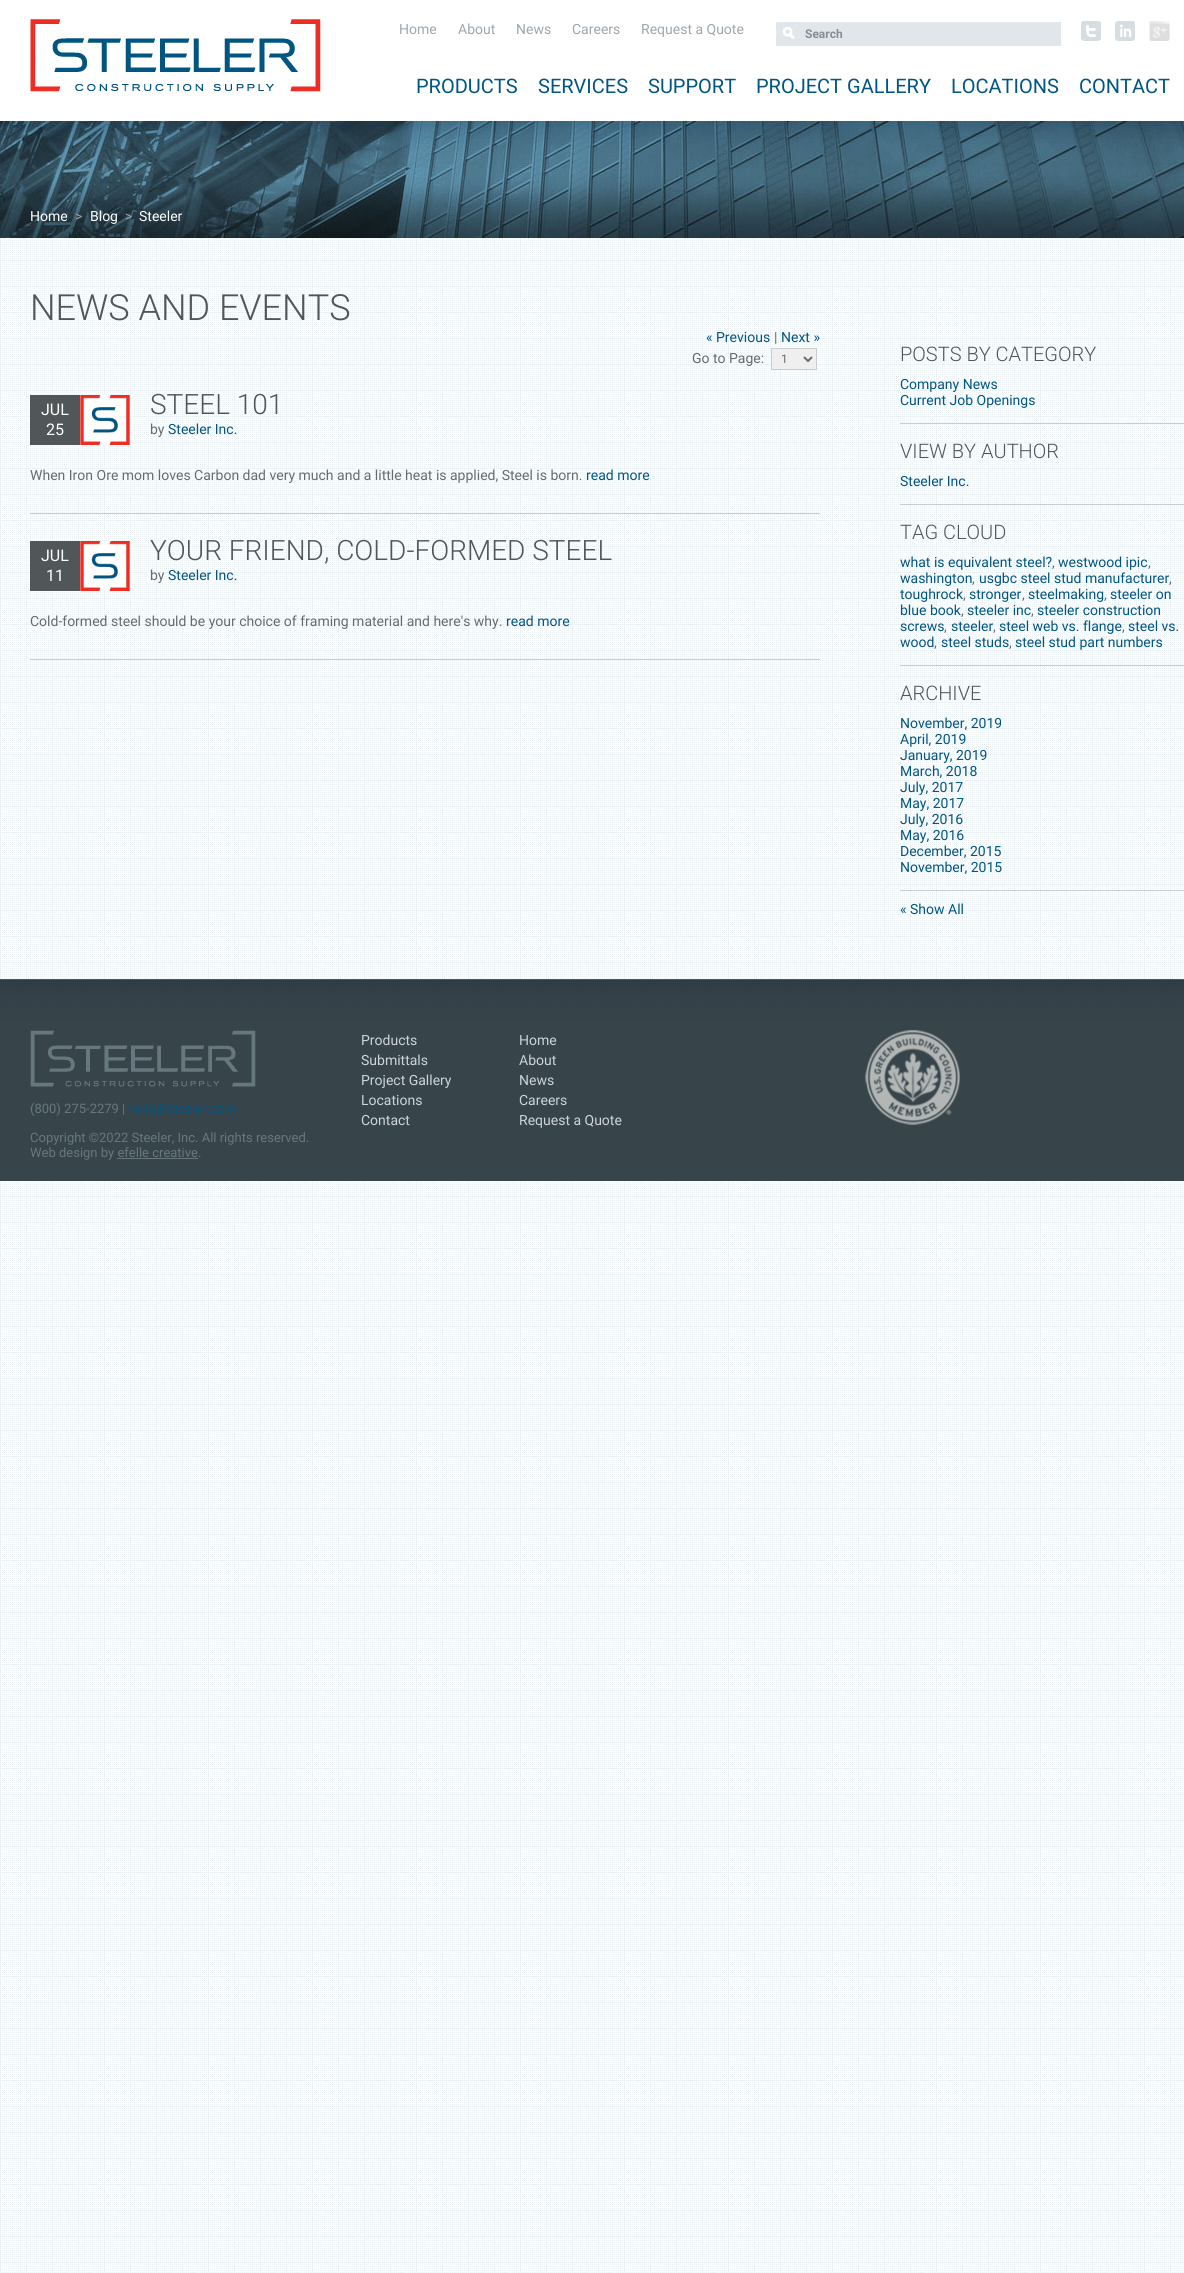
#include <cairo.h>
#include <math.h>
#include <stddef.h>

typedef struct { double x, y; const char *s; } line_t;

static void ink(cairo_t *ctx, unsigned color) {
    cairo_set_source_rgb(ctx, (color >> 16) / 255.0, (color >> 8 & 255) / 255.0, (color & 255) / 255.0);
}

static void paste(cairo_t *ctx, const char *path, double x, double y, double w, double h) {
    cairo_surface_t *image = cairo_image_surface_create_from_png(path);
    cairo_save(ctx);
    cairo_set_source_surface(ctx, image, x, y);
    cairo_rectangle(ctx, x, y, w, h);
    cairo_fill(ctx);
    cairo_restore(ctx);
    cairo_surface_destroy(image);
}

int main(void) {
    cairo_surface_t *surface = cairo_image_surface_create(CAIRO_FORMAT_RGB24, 1184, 2273);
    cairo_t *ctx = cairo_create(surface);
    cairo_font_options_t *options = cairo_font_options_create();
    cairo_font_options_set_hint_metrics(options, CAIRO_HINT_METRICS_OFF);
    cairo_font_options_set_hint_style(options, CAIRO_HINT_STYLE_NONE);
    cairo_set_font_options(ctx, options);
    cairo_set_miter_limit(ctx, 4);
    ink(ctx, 0xFFFFFF);
    cairo_paint(ctx);
    paste(ctx, "media/1.png", 0, 238, 1184, 2035);
    paste(ctx, "media/2.png", 30, 19, 291, 73);
    cairo_select_font_face(ctx, "Roboto", CAIRO_FONT_SLANT_NORMAL, CAIRO_FONT_WEIGHT_NORMAL);
    cairo_set_font_size(ctx, 14);
    ink(ctx, 0x9EA6AB);
    {
        static const line_t items[] = {
            {399, 34, "Home"},
            {458, 34, "About"},
            {516, 34, "News"},
            {572, 34, "Careers"},
            {641, 34, "Request a Quote"},
        };
        for (size_t i = 0; i < sizeof items / sizeof *items; i++) {
            cairo_move_to(ctx, items[i].x, items[i].y);
            cairo_show_text(ctx, items[i].s);
        }
    }
    ink(ctx, 0xE0E6EA);
    cairo_rectangle(ctx, 776, 22, 285, 24);
    cairo_fill(ctx);
    paste(ctx, "media/3.png", 783, 27, 12, 12);
    paste(ctx, "media/4.png", 783, 27, 12, 12);
    cairo_select_font_face(ctx, "Roboto", CAIRO_FONT_SLANT_NORMAL, CAIRO_FONT_WEIGHT_BOLD);
    cairo_set_font_size(ctx, 12);
    ink(ctx, 0x868D90);
    cairo_move_to(ctx, 805, 38);
    cairo_show_text(ctx, "Search");
    paste(ctx, "media/5.png", 1081, 21, 20, 20);
    paste(ctx, "media/6.png", 1115, 21, 20, 20);
    paste(ctx, "media/7.png", 1149, 21, 21, 20);
    cairo_select_font_face(ctx, "Roboto", CAIRO_FONT_SLANT_NORMAL, CAIRO_FONT_WEIGHT_NORMAL);
    cairo_set_font_size(ctx, 20);
    ink(ctx, 0x005581);
    {
        static const line_t items[] = {
            {416, 93, "PRODUCTS"},
            {538, 93, "SERVICES"},
            {648, 93, "SUPPORT"},
            {756, 93, "PROJECT GALLERY"},
            {951, 93, "LOCATIONS"},
            {1079, 93, "CONTACT"},
        };
        for (size_t i = 0; i < sizeof items / sizeof *items; i++) {
            cairo_move_to(ctx, items[i].x, items[i].y);
            cairo_show_text(ctx, items[i].s);
        }
    }
    paste(ctx, "media/8.png", 0, 121, 1184, 117);
    cairo_set_font_size(ctx, 14);
    ink(ctx, 0xFFFFFF);
    cairo_move_to(ctx, 30, 221);
    cairo_show_text(ctx, "Home");
    ink(ctx, 0x9EA1A2);
    cairo_move_to(ctx, 75, 221);
    cairo_show_text(ctx, ">");
    ink(ctx, 0xFFFFFF);
    cairo_move_to(ctx, 90, 221);
    cairo_show_text(ctx, "Blog");
    ink(ctx, 0x9EA1A2);
    cairo_move_to(ctx, 125, 221);
    cairo_show_text(ctx, ">");
    ink(ctx, 0xFFFFFF);
    cairo_move_to(ctx, 139, 221);
    cairo_show_text(ctx, "Steeler");
    cairo_select_font_face(ctx, "Roboto Light", CAIRO_FONT_SLANT_NORMAL, CAIRO_FONT_WEIGHT_NORMAL);
    cairo_set_font_size(ctx, 36);
    ink(ctx, 0x515659);
    cairo_move_to(ctx, 30, 320);
    cairo_show_text(ctx, "NEWS AND EVENTS");
    cairo_select_font_face(ctx, "Roboto", CAIRO_FONT_SLANT_NORMAL, CAIRO_FONT_WEIGHT_NORMAL);
    cairo_set_font_size(ctx, 14);
    ink(ctx, 0x005581);
    cairo_move_to(ctx, 706, 342);
    cairo_show_text(ctx, "« Previous");
    ink(ctx, 0x686B6D);
    cairo_move_to(ctx, 774, 342);
    cairo_show_text(ctx, "|");
    ink(ctx, 0x005581);
    cairo_move_to(ctx, 781, 342);
    cairo_show_text(ctx, "Next »");
    ink(ctx, 0x686B6D);
    cairo_move_to(ctx, 692, 363);
    cairo_show_text(ctx, "Go to Page:");
    ink(ctx, 0xEFEFEF);
    cairo_rectangle(ctx, 771.5, 348.5, 45, 21);
    cairo_fill_preserve(ctx);
    ink(ctx, 0xCCCCCC);
    cairo_set_line_width(ctx, 1);
    cairo_stroke(ctx);
    cairo_new_path(ctx);
    cairo_move_to(ctx, 804, 357);
    cairo_line_to(ctx, 808, 361);
    cairo_line_to(ctx, 812, 357);
    ink(ctx, 0x636D70);
    cairo_set_line_width(ctx, 2);
    cairo_stroke(ctx);
    cairo_set_font_size(ctx, 12);
    ink(ctx, 0x686B6D);
    cairo_move_to(ctx, 781, 363);
    cairo_show_text(ctx, "1");
    ink(ctx, 0xCCCCCC);
    cairo_rectangle(ctx, 30, 513, 790, 1);
    cairo_fill(ctx);
    ink(ctx, 0x515659);
    cairo_rectangle(ctx, 30, 395, 50, 50);
    cairo_fill(ctx);
    cairo_set_font_size(ctx, 16);
    ink(ctx, 0xFFFFFF);
    cairo_move_to(ctx, 41, 415);
    cairo_show_text(ctx, "JUL");
    cairo_move_to(ctx, 46, 435);
    cairo_show_text(ctx, "25");
    paste(ctx, "media/9.png", 80, 395, 50, 50);
    cairo_select_font_face(ctx, "Roboto Light", CAIRO_FONT_SLANT_NORMAL, CAIRO_FONT_WEIGHT_NORMAL);
    cairo_set_font_size(ctx, 28);
    ink(ctx, 0x515659);
    cairo_move_to(ctx, 150, 414);
    cairo_show_text(ctx, "STEEL 101");
    cairo_select_font_face(ctx, "Roboto", CAIRO_FONT_SLANT_NORMAL, CAIRO_FONT_WEIGHT_NORMAL);
    cairo_set_font_size(ctx, 14);
    ink(ctx, 0x686B6D);
    cairo_move_to(ctx, 150, 434);
    cairo_show_text(ctx, "by");
    ink(ctx, 0x005581);
    cairo_move_to(ctx, 168, 434);
    cairo_show_text(ctx, "Steeler Inc.");
    ink(ctx, 0x686B6D);
    cairo_move_to(ctx, 30, 480);
    cairo_show_text(ctx, "When Iron Ore mom loves Carbon dad very much and a little heat is applied, Steel is born.");
    ink(ctx, 0x005581);
    cairo_move_to(ctx, 586, 480);
    cairo_show_text(ctx, "read more");
    ink(ctx, 0xCCCCCC);
    cairo_rectangle(ctx, 30, 659, 790, 1);
    cairo_fill(ctx);
    ink(ctx, 0x515659);
    cairo_rectangle(ctx, 30, 541, 50, 50);
    cairo_fill(ctx);
    cairo_set_font_size(ctx, 16);
    ink(ctx, 0xFFFFFF);
    cairo_move_to(ctx, 41, 561);
    cairo_show_text(ctx, "JUL");
    cairo_move_to(ctx, 46, 581);
    cairo_show_text(ctx, "11");
    paste(ctx, "media/9.png", 80, 541, 50, 50);
    cairo_select_font_face(ctx, "Roboto Light", CAIRO_FONT_SLANT_NORMAL, CAIRO_FONT_WEIGHT_NORMAL);
    cairo_set_font_size(ctx, 28);
    ink(ctx, 0x515659);
    cairo_move_to(ctx, 150, 560);
    cairo_show_text(ctx, "YOUR FRIEND, COLD-FORMED STEEL");
    cairo_select_font_face(ctx, "Roboto", CAIRO_FONT_SLANT_NORMAL, CAIRO_FONT_WEIGHT_NORMAL);
    cairo_set_font_size(ctx, 14);
    ink(ctx, 0x686B6D);
    cairo_move_to(ctx, 150, 580);
    cairo_show_text(ctx, "by");
    ink(ctx, 0x005581);
    cairo_move_to(ctx, 168, 580);
    cairo_show_text(ctx, "Steeler Inc.");
    ink(ctx, 0x686B6D);
    cairo_move_to(ctx, 30, 626);
    cairo_show_text(ctx, "Cold-formed steel should be your choice of framing material and here's why.");
    ink(ctx, 0x005581);
    cairo_move_to(ctx, 506, 626);
    cairo_show_text(ctx, "read more");
    ink(ctx, 0xCCCCCC);
    cairo_rectangle(ctx, 900, 423, 284, 1);
    cairo_fill(ctx);
    cairo_select_font_face(ctx, "Roboto Light", CAIRO_FONT_SLANT_NORMAL, CAIRO_FONT_WEIGHT_NORMAL);
    cairo_set_font_size(ctx, 20);
    ink(ctx, 0x515659);
    cairo_move_to(ctx, 900, 361);
    cairo_show_text(ctx, "POSTS BY CATEGORY");
    cairo_select_font_face(ctx, "Roboto", CAIRO_FONT_SLANT_NORMAL, CAIRO_FONT_WEIGHT_NORMAL);
    cairo_set_font_size(ctx, 14);
    ink(ctx, 0x005581);
    cairo_move_to(ctx, 900, 389);
    cairo_show_text(ctx, "Company News");
    cairo_move_to(ctx, 900, 405);
    cairo_show_text(ctx, "Current Job Openings");
    ink(ctx, 0xCCCCCC);
    cairo_rectangle(ctx, 900, 504, 284, 1);
    cairo_fill(ctx);
    cairo_select_font_face(ctx, "Roboto Light", CAIRO_FONT_SLANT_NORMAL, CAIRO_FONT_WEIGHT_NORMAL);
    cairo_set_font_size(ctx, 20);
    ink(ctx, 0x515659);
    cairo_move_to(ctx, 900, 458);
    cairo_show_text(ctx, "VIEW BY AUTHOR");
    cairo_select_font_face(ctx, "Roboto", CAIRO_FONT_SLANT_NORMAL, CAIRO_FONT_WEIGHT_NORMAL);
    cairo_set_font_size(ctx, 14);
    ink(ctx, 0x005581);
    cairo_move_to(ctx, 900, 486);
    cairo_show_text(ctx, "Steeler Inc.");
    ink(ctx, 0xCCCCCC);
    cairo_rectangle(ctx, 900, 665, 284, 1);
    cairo_fill(ctx);
    cairo_select_font_face(ctx, "Roboto Light", CAIRO_FONT_SLANT_NORMAL, CAIRO_FONT_WEIGHT_NORMAL);
    cairo_set_font_size(ctx, 20);
    ink(ctx, 0x515659);
    cairo_move_to(ctx, 900, 539);
    cairo_show_text(ctx, "TAG CLOUD");
    cairo_select_font_face(ctx, "Roboto", CAIRO_FONT_SLANT_NORMAL, CAIRO_FONT_WEIGHT_NORMAL);
    cairo_set_font_size(ctx, 14);
    ink(ctx, 0x005581);
    cairo_move_to(ctx, 900, 567);
    cairo_show_text(ctx, "what is equivalent steel?");
    ink(ctx, 0x686B6D);
    cairo_move_to(ctx, 1052, 567);
    cairo_show_text(ctx, ",");
    ink(ctx, 0x005581);
    cairo_move_to(ctx, 1058, 567);
    cairo_show_text(ctx, "westwood ipic");
    ink(ctx, 0x686B6D);
    cairo_move_to(ctx, 1148, 567);
    cairo_show_text(ctx, ",");
    ink(ctx, 0x005581);
    cairo_move_to(ctx, 900, 583);
    cairo_show_text(ctx, "washington");
    ink(ctx, 0x686B6D);
    cairo_move_to(ctx, 972, 583);
    cairo_show_text(ctx, ",");
    ink(ctx, 0x005581);
    cairo_move_to(ctx, 979, 583);
    cairo_show_text(ctx, "usgbc steel stud manufacturer");
    ink(ctx, 0x686B6D);
    cairo_move_to(ctx, 1169, 583);
    cairo_show_text(ctx, ",");
    ink(ctx, 0x005581);
    cairo_move_to(ctx, 900, 599);
    cairo_show_text(ctx, "toughrock");
    ink(ctx, 0x686B6D);
    cairo_move_to(ctx, 963, 599);
    cairo_show_text(ctx, ",");
    ink(ctx, 0x005581);
    cairo_move_to(ctx, 969, 599);
    cairo_show_text(ctx, "stronger");
    ink(ctx, 0x686B6D);
    cairo_move_to(ctx, 1022, 599);
    cairo_show_text(ctx, ",");
    ink(ctx, 0x005581);
    cairo_move_to(ctx, 1028, 599);
    cairo_show_text(ctx, "steelmaking");
    ink(ctx, 0x686B6D);
    cairo_move_to(ctx, 1104, 599);
    cairo_show_text(ctx, ",");
    ink(ctx, 0x005581);
    cairo_move_to(ctx, 1110, 599);
    cairo_show_text(ctx, "steeler on");
    cairo_move_to(ctx, 900, 615);
    cairo_show_text(ctx, "blue book");
    ink(ctx, 0x686B6D);
    cairo_move_to(ctx, 961, 615);
    cairo_show_text(ctx, ",");
    ink(ctx, 0x005581);
    cairo_move_to(ctx, 967, 615);
    cairo_show_text(ctx, "steeler inc");
    ink(ctx, 0x686B6D);
    cairo_move_to(ctx, 1031, 615);
    cairo_show_text(ctx, ",");
    ink(ctx, 0x005581);
    cairo_move_to(ctx, 1037, 615);
    cairo_show_text(ctx, "steeler construction");
    cairo_move_to(ctx, 900, 631);
    cairo_show_text(ctx, "screws");
    ink(ctx, 0x686B6D);
    cairo_move_to(ctx, 944, 631);
    cairo_show_text(ctx, ",");
    ink(ctx, 0x005581);
    cairo_move_to(ctx, 951, 631);
    cairo_show_text(ctx, "steeler");
    ink(ctx, 0x686B6D);
    cairo_move_to(ctx, 993, 631);
    cairo_show_text(ctx, ",");
    ink(ctx, 0x005581);
    cairo_move_to(ctx, 999, 631);
    cairo_show_text(ctx, "steel web vs. flange");
    ink(ctx, 0x686B6D);
    cairo_move_to(ctx, 1122, 631);
    cairo_show_text(ctx, ",");
    ink(ctx, 0x005581);
    cairo_move_to(ctx, 1128, 631);
    cairo_show_text(ctx, "steel vs.");
    cairo_move_to(ctx, 900, 647);
    cairo_show_text(ctx, "wood");
    ink(ctx, 0x686B6D);
    cairo_move_to(ctx, 934, 647);
    cairo_show_text(ctx, ",");
    ink(ctx, 0x005581);
    cairo_move_to(ctx, 941, 647);
    cairo_show_text(ctx, "steel studs");
    ink(ctx, 0x686B6D);
    cairo_move_to(ctx, 1009, 647);
    cairo_show_text(ctx, ",");
    ink(ctx, 0x005581);
    cairo_move_to(ctx, 1015, 647);
    cairo_show_text(ctx, "steel stud part numbers");
    ink(ctx, 0xCCCCCC);
    cairo_rectangle(ctx, 900, 890, 284, 1);
    cairo_fill(ctx);
    cairo_select_font_face(ctx, "Roboto Light", CAIRO_FONT_SLANT_NORMAL, CAIRO_FONT_WEIGHT_NORMAL);
    cairo_set_font_size(ctx, 20);
    ink(ctx, 0x515659);
    cairo_move_to(ctx, 900, 700);
    cairo_show_text(ctx, "ARCHIVE");
    cairo_select_font_face(ctx, "Roboto", CAIRO_FONT_SLANT_NORMAL, CAIRO_FONT_WEIGHT_NORMAL);
    cairo_set_font_size(ctx, 14);
    ink(ctx, 0x005581);
    {
        static const line_t items[] = {
            {900, 728, "November, 2019"},
            {900, 744, "April, 2019"},
            {900, 760, "January, 2019"},
            {900, 776, "March, 2018"},
            {900, 792, "July, 2017"},
            {900, 808, "May, 2017"},
            {900, 824, "July, 2016"},
            {900, 840, "May, 2016"},
            {900, 856, "December, 2015"},
            {900, 872, "November, 2015"},
            {900, 914, "« Show All"},
        };
        for (size_t i = 0; i < sizeof items / sizeof *items; i++) {
            cairo_move_to(ctx, items[i].x, items[i].y);
            cairo_show_text(ctx, items[i].s);
        }
    }
    ink(ctx, 0x406274);
    cairo_rectangle(ctx, 0, 979, 1184, 1);
    cairo_fill(ctx);
    paste(ctx, "media/10.png", 0, 979, 1184, 202);
    paste(ctx, "media/11.png", 30, 1030, 226, 57);
    cairo_set_font_size(ctx, 13);
    ink(ctx, 0x66777E);
    cairo_move_to(ctx, 30, 1113);
    cairo_show_text(ctx, "(800) 275-2279 |");
    ink(ctx, 0x005581);
    cairo_move_to(ctx, 128, 1113);
    cairo_show_text(ctx, "hello@steeler.com");
    ink(ctx, 0x66777E);
    cairo_move_to(ctx, 30, 1142);
    cairo_show_text(ctx, "Copyright ©2022 Steeler, Inc. All rights reserved.");
    cairo_move_to(ctx, 30, 1157);
    cairo_show_text(ctx, "Web design by efelle creative.");
    cairo_rectangle(ctx, 117, 1158, 81, 1);
    cairo_fill(ctx);
    cairo_set_font_size(ctx, 14);
    ink(ctx, 0xCDD5D9);
    {
        static const line_t items[] = {
            {361, 1045, "Products"},
            {361, 1065, "Submittals"},
            {361, 1085, "Project Gallery"},
            {361, 1105, "Locations"},
            {361, 1125, "Contact"},
            {519, 1045, "Home"},
            {519, 1065, "About"},
            {519, 1085, "News"},
            {519, 1105, "Careers"},
            {519, 1125, "Request a Quote"},
        };
        for (size_t i = 0; i < sizeof items / sizeof *items; i++) {
            cairo_move_to(ctx, items[i].x, items[i].y);
            cairo_show_text(ctx, items[i].s);
        }
    }
    paste(ctx, "media/12.png", 865, 1030, 95, 95);
    cairo_surface_write_to_png(surface, "image.png");
    cairo_font_options_destroy(options);
    cairo_destroy(ctx);
    cairo_surface_destroy(surface);
    return 0;
}
